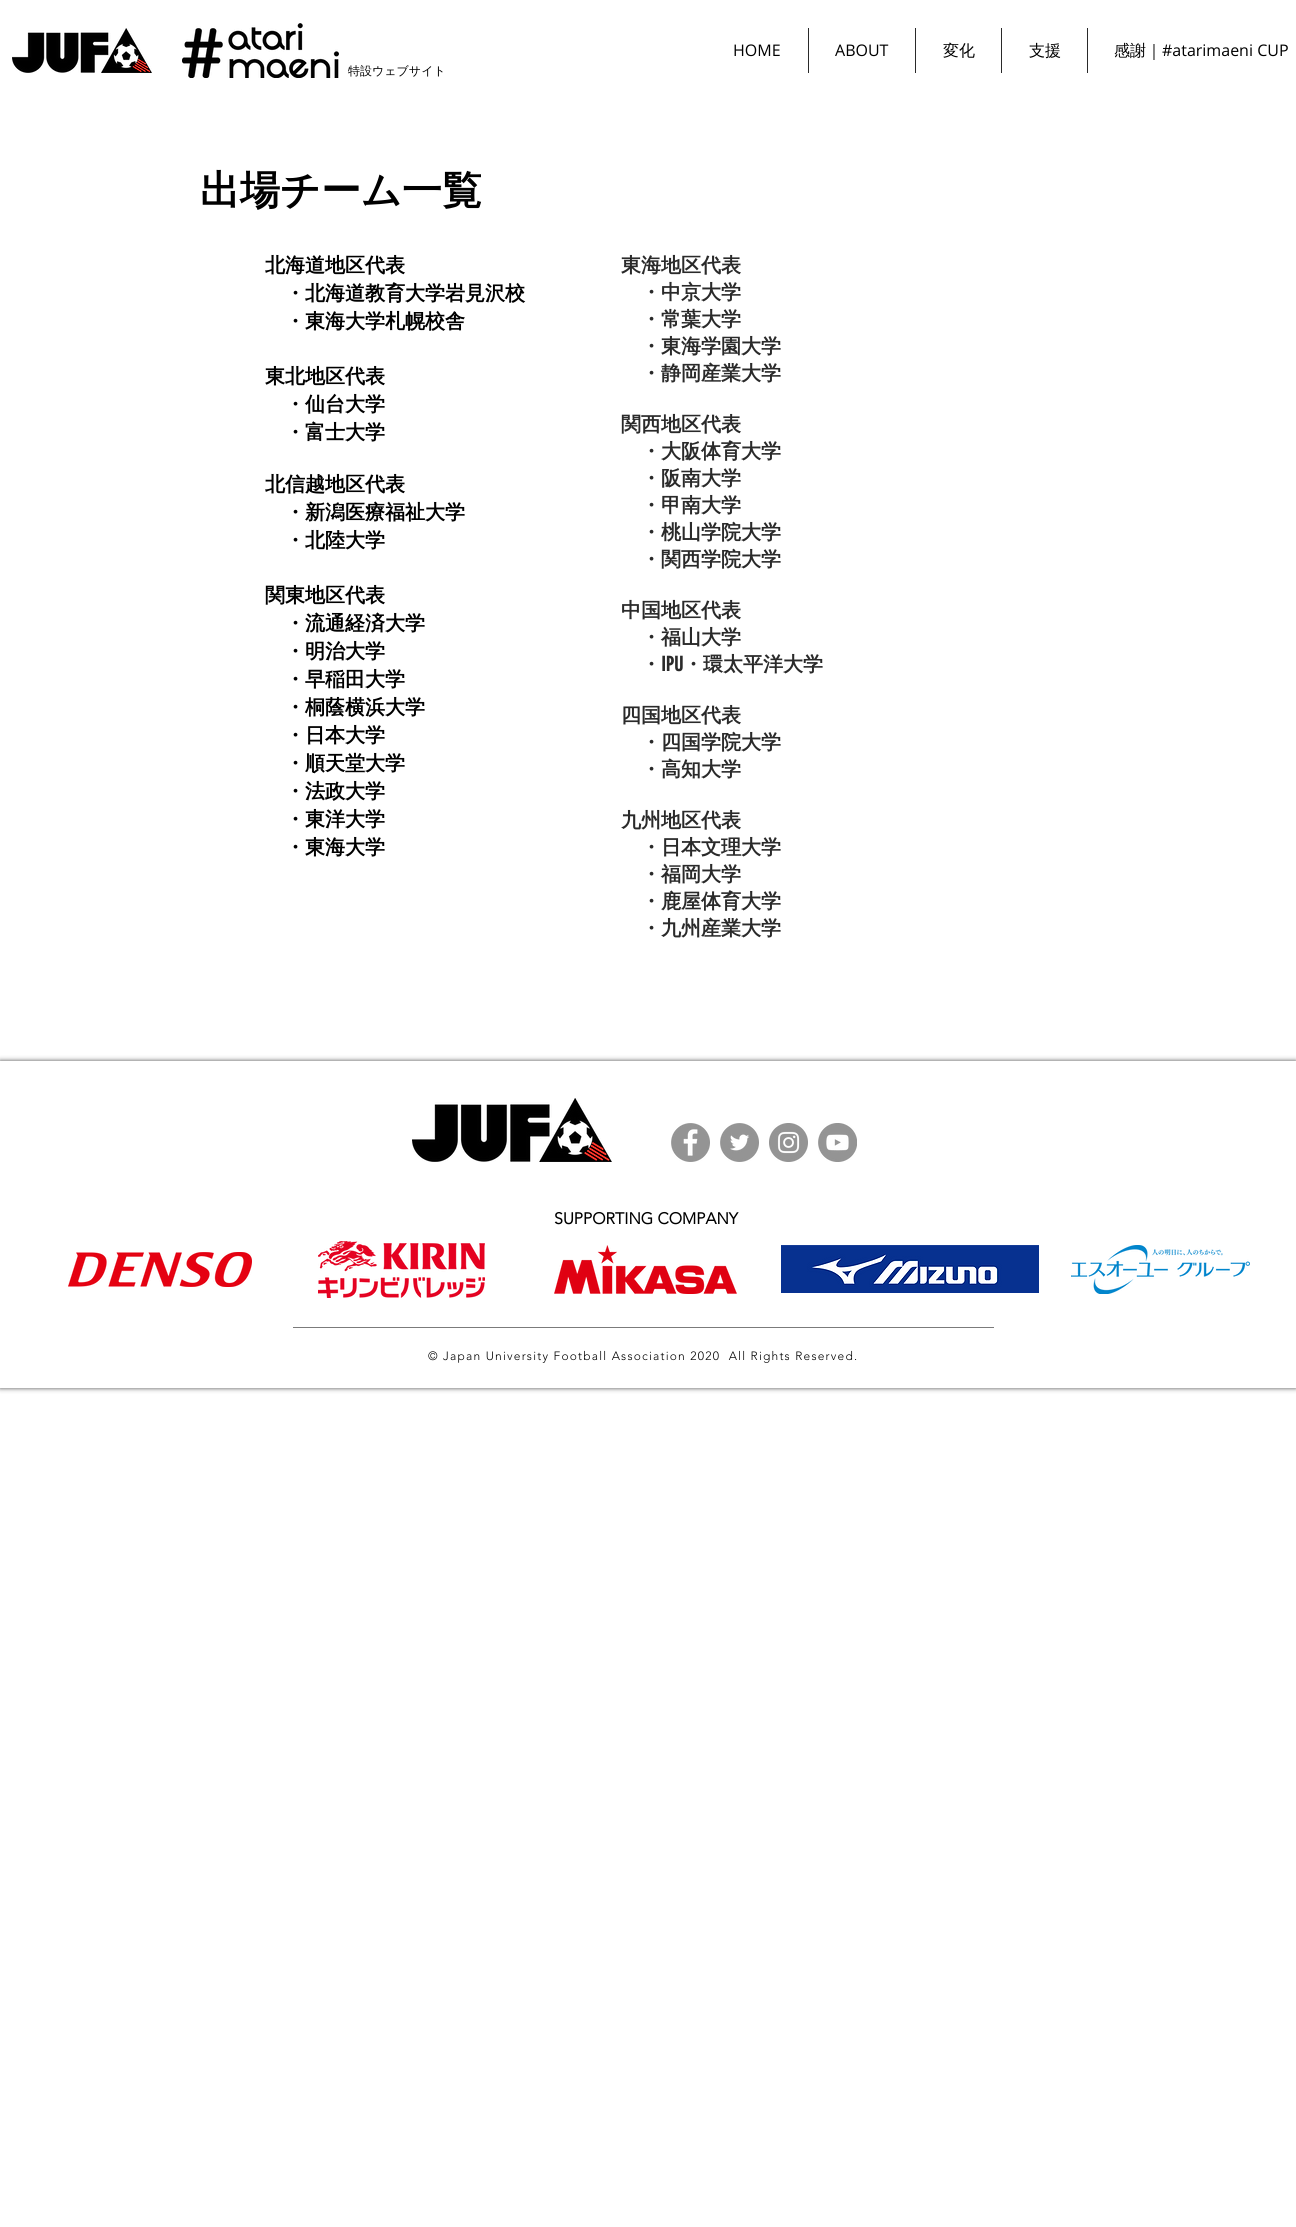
#include <cairo.h>
#include <math.h>
#include <stddef.h>

typedef struct { double x, y; const char *s; } line_t;

static void ink(cairo_t *ctx, unsigned color) {
    cairo_set_source_rgb(ctx, (color >> 16) / 255.0, (color >> 8 & 255) / 255.0, (color & 255) / 255.0);
}

static void write_spaced(cairo_t *ctx, double x, double y, const char *s, double letter, double word) {
    cairo_move_to(ctx, x, y);
    while (*s) {
        char ch[5] = {0};
        int n = 0;
        do ch[n++] = *s++; while ((*s & 0xC0) == 0x80);
        cairo_show_text(ctx, ch);
        cairo_rel_move_to(ctx, letter + word * (*ch == ' '), 0);
    }
}

static void round_path(cairo_t *ctx, double x, double y, double w, double h, double r) {
    cairo_new_sub_path(ctx);
    cairo_arc(ctx, x + w - r, y + h - r, r, 0, M_PI / 2);
    cairo_arc(ctx, x + r, y + h - r, r, M_PI / 2, M_PI);
    cairo_arc(ctx, x + r, y + r, r, M_PI, 1.5 * M_PI);
    cairo_arc(ctx, x + w - r, y + r, r, 1.5 * M_PI, 2 * M_PI);
    cairo_close_path(ctx);
}

static void blur_box(cairo_t *ctx, double x, double y, double w, double h, double r, double blur, double alpha) {
    cairo_push_group_with_content(ctx, CAIRO_CONTENT_ALPHA);
    cairo_set_operator(ctx, CAIRO_OPERATOR_SOURCE);
    for (int i = 15; i >= -15 && fmin(w, h) + blur * i / 3 > 0; i -= 2) {
        double e = blur * i / 6;
        cairo_set_source_rgba(ctx, 0, 0, 0, alpha * erfc((i - 1) / 8.5) / 2);
        round_path(ctx, x - e, y - e, w + 2 * e, h + 2 * e, fmax(0, fmin(r + e + blur * .6, fmin(w, h) / 2 + e)));
        cairo_fill(ctx);
    }
    cairo_pattern_t *soft = cairo_pop_group(ctx);
    cairo_mask(ctx, soft);
    cairo_pattern_destroy(soft);
}

static void paste(cairo_t *ctx, const char *path, double x, double y, double w, double h) {
    cairo_surface_t *image = cairo_image_surface_create_from_png(path);
    cairo_save(ctx);
    cairo_set_source_surface(ctx, image, x, y);
    cairo_rectangle(ctx, x, y, w, h);
    cairo_fill(ctx);
    cairo_restore(ctx);
    cairo_surface_destroy(image);
}

int main(void) {
    cairo_surface_t *surface = cairo_image_surface_create(CAIRO_FORMAT_RGB24, 1296, 2227);
    cairo_t *ctx = cairo_create(surface);
    cairo_font_options_t *options = cairo_font_options_create();
    cairo_font_options_set_hint_metrics(options, CAIRO_HINT_METRICS_OFF);
    cairo_font_options_set_hint_style(options, CAIRO_HINT_STYLE_NONE);
    cairo_set_font_options(ctx, options);
    cairo_set_miter_limit(ctx, 4);
    ink(ctx, 0xFFFFFF);
    cairo_paint(ctx);
    paste(ctx, "media/1.png", 12, 28, 140, 45);
    paste(ctx, "media/2.png", 182, 23, 157, 55);
    cairo_select_font_face(ctx, "Open Sans", CAIRO_FONT_SLANT_NORMAL, CAIRO_FONT_WEIGHT_NORMAL);
    cairo_set_font_size(ctx, 16);
    ink(ctx, 0x000000);
    cairo_move_to(ctx, 733, 56);
    cairo_show_text(ctx, "HOME");
    ink(ctx, 0x2A2A2A);
    cairo_rectangle(ctx, 808, 28, 1, 45);
    cairo_fill(ctx);
    ink(ctx, 0x000000);
    cairo_move_to(ctx, 835, 56);
    cairo_show_text(ctx, "ABOUT");
    ink(ctx, 0x2A2A2A);
    cairo_rectangle(ctx, 915, 28, 1, 45);
    cairo_fill(ctx);
    cairo_select_font_face(ctx, "WenQuanYi Zen Hei Medium", CAIRO_FONT_SLANT_NORMAL, CAIRO_FONT_WEIGHT_NORMAL);
    ink(ctx, 0x000000);
    cairo_move_to(ctx, 943, 56);
    cairo_show_text(ctx, "変化");
    ink(ctx, 0x2A2A2A);
    cairo_rectangle(ctx, 1001, 28, 1, 45);
    cairo_fill(ctx);
    ink(ctx, 0x000000);
    cairo_move_to(ctx, 1029, 56);
    cairo_show_text(ctx, "支援");
    ink(ctx, 0x2A2A2A);
    cairo_rectangle(ctx, 1087, 28, 1, 45);
    cairo_fill(ctx);
    ink(ctx, 0x000000);
    cairo_move_to(ctx, 1114, 56);
    cairo_show_text(ctx, "感謝｜");
    cairo_select_font_face(ctx, "Open Sans", CAIRO_FONT_SLANT_NORMAL, CAIRO_FONT_WEIGHT_NORMAL);
    cairo_move_to(ctx, 1162, 56);
    cairo_show_text(ctx, "#atarimaeni CUP");
    cairo_select_font_face(ctx, "WenQuanYi Zen Hei Medium", CAIRO_FONT_SLANT_NORMAL, CAIRO_FONT_WEIGHT_NORMAL);
    cairo_set_font_size(ctx, 12);
    cairo_move_to(ctx, 348, 75);
    cairo_show_text(ctx, "特設ウェブサイト");
    cairo_select_font_face(ctx, "WenQuanYi Zen Hei", CAIRO_FONT_SLANT_NORMAL, CAIRO_FONT_WEIGHT_BOLD);
    cairo_set_font_size(ctx, 40);
    cairo_move_to(ctx, 200, 204);
    cairo_show_text(ctx, "出場チーム一覧");
    cairo_set_font_size(ctx, 20);
    {
        static const line_t items[] = {
            {265, 272, "北海道地区代表"},
            {285, 300, "・北海道教育大学岩見沢校"},
            {285, 328, "・東海大学札幌校舎"},
            {265, 383, "東北地区代表"},
            {285, 411, "・仙台大学"},
            {285, 439, "・富士大学"},
            {265, 491, "北信越地区代表"},
            {285, 519, "・新潟医療福祉大学"},
            {285, 547, "・北陸大学"},
            {265, 602, "関東地区代表"},
            {285, 630, "・流通経済大学"},
            {285, 658, "・明治大学"},
            {285, 686, "・早稲田大学"},
            {285, 714, "・桐蔭横浜大学"},
            {285, 742, "・日本大学"},
            {285, 770, "・順天堂大学"},
            {285, 798, "・法政大学"},
            {285, 826, "・東洋大学"},
            {285, 854, "・東海大学"},
        };
        for (size_t i = 0; i < sizeof items / sizeof *items; i++) {
            cairo_move_to(ctx, items[i].x, items[i].y);
            cairo_show_text(ctx, items[i].s);
        }
    }
    ink(ctx, 0x2A2A2A);
    {
        static const line_t items[] = {
            {621, 272, "東海地区代表"},
            {641, 299, "・中京大学"},
            {641, 326, "・常葉大学"},
            {641, 353, "・東海学園大学"},
            {641, 380, "・静岡産業大学"},
            {621, 431, "関西地区代表"},
            {641, 458, "・大阪体育大学"},
            {641, 485, "・阪南大学"},
            {641, 512, "・甲南大学"},
            {641, 539, "・桃山学院大学"},
            {641, 566, "・関西学院大学"},
            {621, 617, "中国地区代表"},
            {641, 644, "・福山大学"},
            {641, 671, "・"},
        };
        for (size_t i = 0; i < sizeof items / sizeof *items; i++) {
            cairo_move_to(ctx, items[i].x, items[i].y);
            cairo_show_text(ctx, items[i].s);
        }
    }
    cairo_select_font_face(ctx, "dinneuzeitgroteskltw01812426", CAIRO_FONT_SLANT_NORMAL, CAIRO_FONT_WEIGHT_BOLD);
    cairo_move_to(ctx, 661, 671);
    cairo_show_text(ctx, "IPU");
    cairo_select_font_face(ctx, "WenQuanYi Zen Hei", CAIRO_FONT_SLANT_NORMAL, CAIRO_FONT_WEIGHT_BOLD);
    {
        static const line_t items[] = {
            {683, 671, "・環太平洋大学"},
            {621, 722, "四国地区代表"},
            {641, 749, "・四国学院大学"},
            {641, 776, "・高知大学"},
            {621, 827, "九州地区代表"},
            {641, 854, "・日本文理大学"},
            {641, 881, "・福岡大学"},
            {641, 908, "・鹿屋体育大学"},
            {641, 935, "・九州産業大学"},
        };
        for (size_t i = 0; i < sizeof items / sizeof *items; i++) {
            cairo_move_to(ctx, items[i].x, items[i].y);
            cairo_show_text(ctx, items[i].s);
        }
    }
    cairo_save(ctx);
    cairo_set_fill_rule(ctx, CAIRO_FILL_RULE_EVEN_ODD);
    cairo_new_path(ctx);
    cairo_move_to(ctx, 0, 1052);
    cairo_line_to(ctx, 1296, 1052);
    cairo_line_to(ctx, 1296, 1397);
    cairo_line_to(ctx, 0, 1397);
    cairo_close_path(ctx);
    cairo_move_to(ctx, 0, 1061);
    cairo_line_to(ctx, 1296, 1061);
    cairo_line_to(ctx, 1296, 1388);
    cairo_line_to(ctx, 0, 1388);
    cairo_close_path(ctx);
    cairo_clip(ctx);
    ink(ctx, 0x000000);
    blur_box(ctx, 0, 1061, 1296, 327, 0, 2.5, 0.7);
    cairo_restore(ctx);
    paste(ctx, "media/3.png", 412, 1098, 200, 64);
    paste(ctx, "media/4.png", 671, 1123, 39, 39);
    paste(ctx, "media/5.png", 720, 1123, 39, 39);
    paste(ctx, "media/6.png", 769, 1123, 39, 39);
    paste(ctx, "media/7.png", 818, 1123, 39, 39);
    cairo_select_font_face(ctx, "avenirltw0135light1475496", CAIRO_FONT_SLANT_NORMAL, CAIRO_FONT_WEIGHT_BOLD);
    cairo_set_font_size(ctx, 16);
    ink(ctx, 0x000000);
    cairo_move_to(ctx, 554, 1224);
    cairo_show_text(ctx, "SUPPORTING COMPANY");
    paste(ctx, "media/8.png", 68, 1252, 184, 35);
    paste(ctx, "media/9.png", 318, 1241, 167, 57);
    paste(ctx, "media/10.png", 554, 1245, 183, 49);
    paste(ctx, "media/11.png", 781, 1245, 258, 48);
    paste(ctx, "media/12.png", 1071, 1245, 179, 49);
    ink(ctx, 0x7B7B7B);
    cairo_rectangle(ctx, 293, 1327, 701, 1);
    cairo_fill(ctx);
    cairo_select_font_face(ctx, "avenirltw0135light1475496 Light", CAIRO_FONT_SLANT_NORMAL, CAIRO_FONT_WEIGHT_NORMAL);
    cairo_set_font_size(ctx, 12);
    ink(ctx, 0x000000);
    write_spaced(ctx, 428, 1360, "© Japan University Football Association 2020  All Rights Reserved.", 1.2, 0);
    cairo_surface_write_to_png(surface, "image.png");
    cairo_font_options_destroy(options);
    cairo_destroy(ctx);
    cairo_surface_destroy(surface);
    return 0;
}
